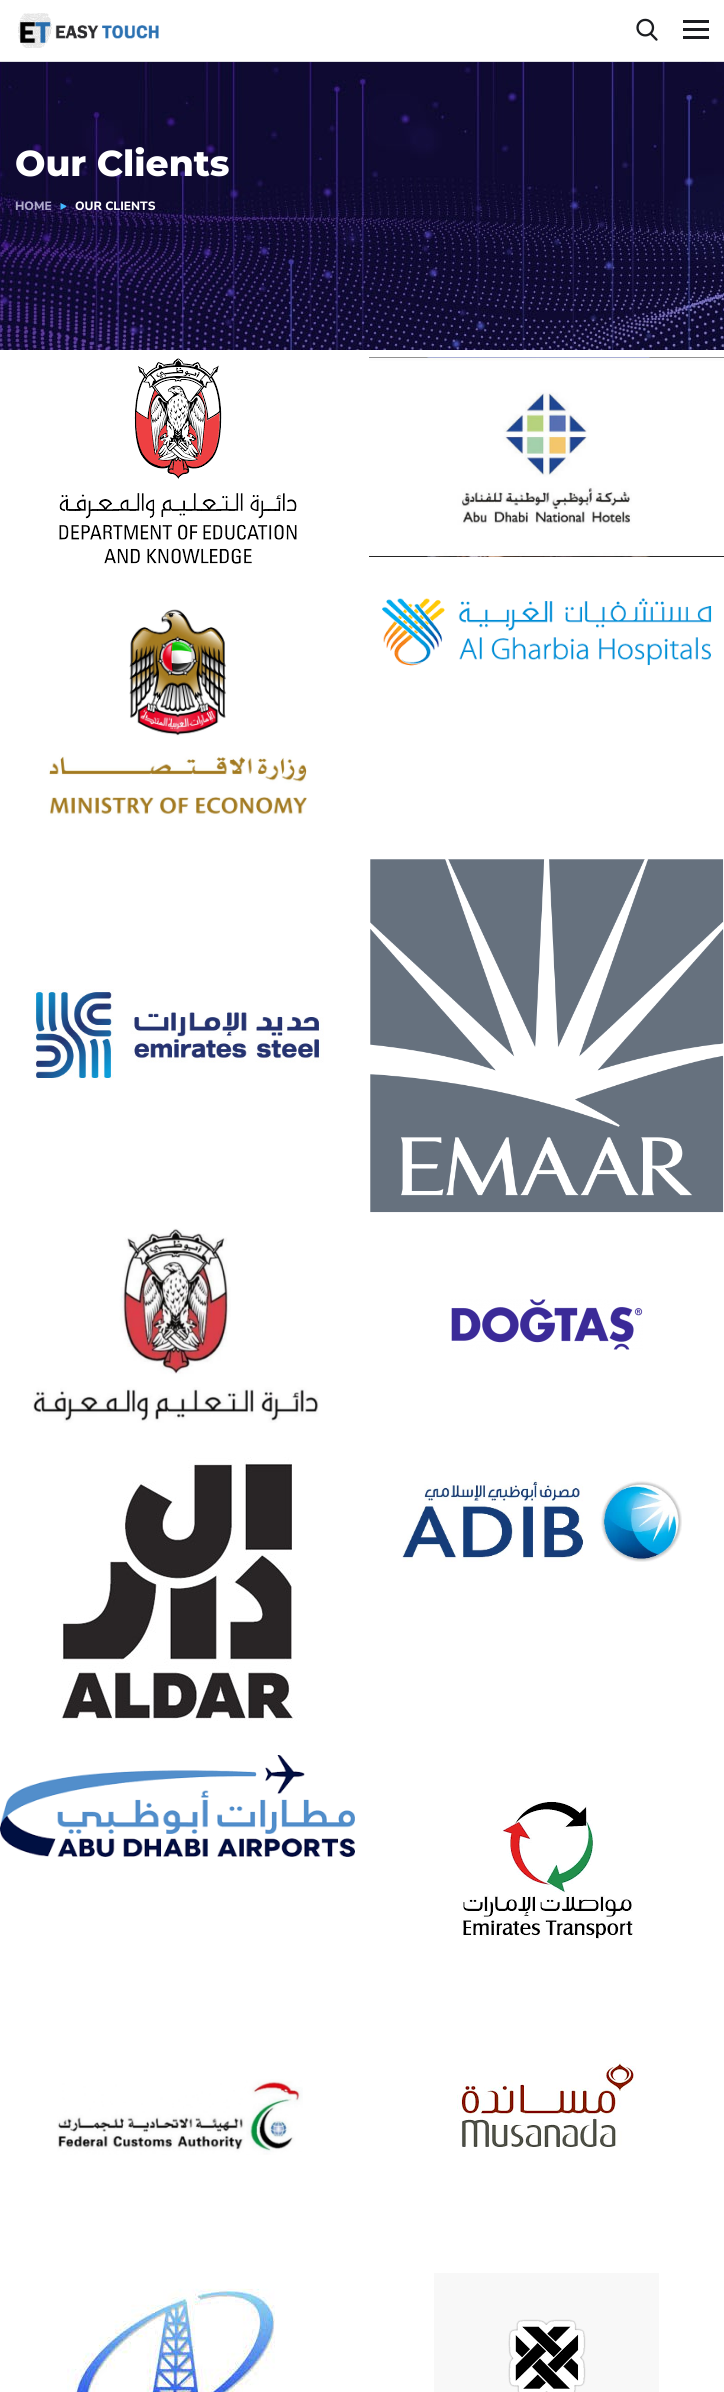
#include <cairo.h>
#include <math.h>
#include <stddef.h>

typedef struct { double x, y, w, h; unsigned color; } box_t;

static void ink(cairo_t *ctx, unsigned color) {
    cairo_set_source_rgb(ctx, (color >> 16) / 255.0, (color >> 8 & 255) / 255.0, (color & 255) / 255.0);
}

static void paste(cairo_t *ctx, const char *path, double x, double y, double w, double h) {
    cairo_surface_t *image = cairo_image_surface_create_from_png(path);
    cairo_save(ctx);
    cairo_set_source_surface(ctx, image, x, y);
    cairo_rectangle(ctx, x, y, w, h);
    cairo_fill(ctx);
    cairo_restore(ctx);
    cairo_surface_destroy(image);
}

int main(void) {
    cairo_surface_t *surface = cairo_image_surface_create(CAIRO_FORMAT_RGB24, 724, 2392);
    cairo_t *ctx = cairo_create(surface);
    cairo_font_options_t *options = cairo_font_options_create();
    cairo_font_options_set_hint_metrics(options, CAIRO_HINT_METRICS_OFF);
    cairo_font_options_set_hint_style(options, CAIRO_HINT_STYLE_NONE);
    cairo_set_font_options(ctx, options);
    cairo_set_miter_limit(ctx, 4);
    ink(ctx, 0xFFFFFF);
    cairo_paint(ctx);
    ink(ctx, 0xDCDDE1);
    cairo_rectangle(ctx, 0, 61, 724, 1);
    cairo_fill(ctx);
    paste(ctx, "media/1.png", 18, 13, 141, 35);
    paste(ctx, "media/2.png", 636, 18, 22, 23);
    {
        static const box_t items[] = {
            {683, 28, 26, 3, 0x1B1D21},
            {683, 20, 26, 3, 0x1B1D21},
            {683, 36, 26, 3, 0x1B1D21},
        };
        for (size_t i = 0; i < sizeof items / sizeof *items; i++) {
            ink(ctx, items[i].color);
            cairo_rectangle(ctx, items[i].x, items[i].y, items[i].w, items[i].h);
            cairo_fill(ctx);
        }
    }
    paste(ctx, "media/3.png", 0, 62, 724, 288);
    cairo_select_font_face(ctx, "Montserrat ExtraBold", CAIRO_FONT_SLANT_NORMAL, CAIRO_FONT_WEIGHT_NORMAL);
    cairo_set_font_size(ctx, 36);
    ink(ctx, 0xFFFFFF);
    cairo_move_to(ctx, 15, 176);
    cairo_show_text(ctx, "Our Clients");
    cairo_select_font_face(ctx, "Nunito Sans ExtraBold", CAIRO_FONT_SLANT_NORMAL, CAIRO_FONT_WEIGHT_NORMAL);
    cairo_set_font_size(ctx, 12);
    ink(ctx, 0xAEAACB);
    cairo_move_to(ctx, 15, 210);
    cairo_show_text(ctx, "HOME");
    ink(ctx, 0x43BAFF);
    cairo_new_path(ctx);
    cairo_move_to(ctx, 66.5, 206);
    cairo_line_to(ctx, 66.5, 206.5);
    cairo_line_to(ctx, 60.5, 210);
    cairo_line_to(ctx, 60.5, 203);
    cairo_close_path(ctx);
    cairo_fill(ctx);
    ink(ctx, 0xFFFFFF);
    cairo_move_to(ctx, 75, 210);
    cairo_show_text(ctx, "OUR CLIENTS");
    paste(ctx, "media/4.png", 59, 358, 238, 206);
    paste(ctx, "media/5.png", 369, 357, 355, 200);
    paste(ctx, "media/6.png", 48, 609, 259, 207);
    paste(ctx, "media/7.png", 382, 598, 330, 68);
    paste(ctx, "media/8.png", 34, 989, 290, 91);
    paste(ctx, "media/9.png", 370, 859, 354, 354);
    paste(ctx, "media/10.png", 33, 1228, 286, 195);
    paste(ctx, "media/11.png", 451, 1299, 192, 51);
    paste(ctx, "media/12.png", 61, 1457, 239, 264);
    paste(ctx, "media/13.png", 402, 1479, 280, 83);
    paste(ctx, "media/14.png", 0, 1755, 355, 102);
    paste(ctx, "media/15.png", 461, 1801, 172, 138);
    paste(ctx, "media/16.png", 57, 2079, 246, 76);
    paste(ctx, "media/17.png", 457, 2059, 179, 88);
    paste(ctx, "media/18.png", 67, 2288, 208, 104);
    paste(ctx, "media/19.png", 434, 2273, 225, 119);
    cairo_surface_write_to_png(surface, "image.png");
    cairo_font_options_destroy(options);
    cairo_destroy(ctx);
    cairo_surface_destroy(surface);
    return 0;
}
